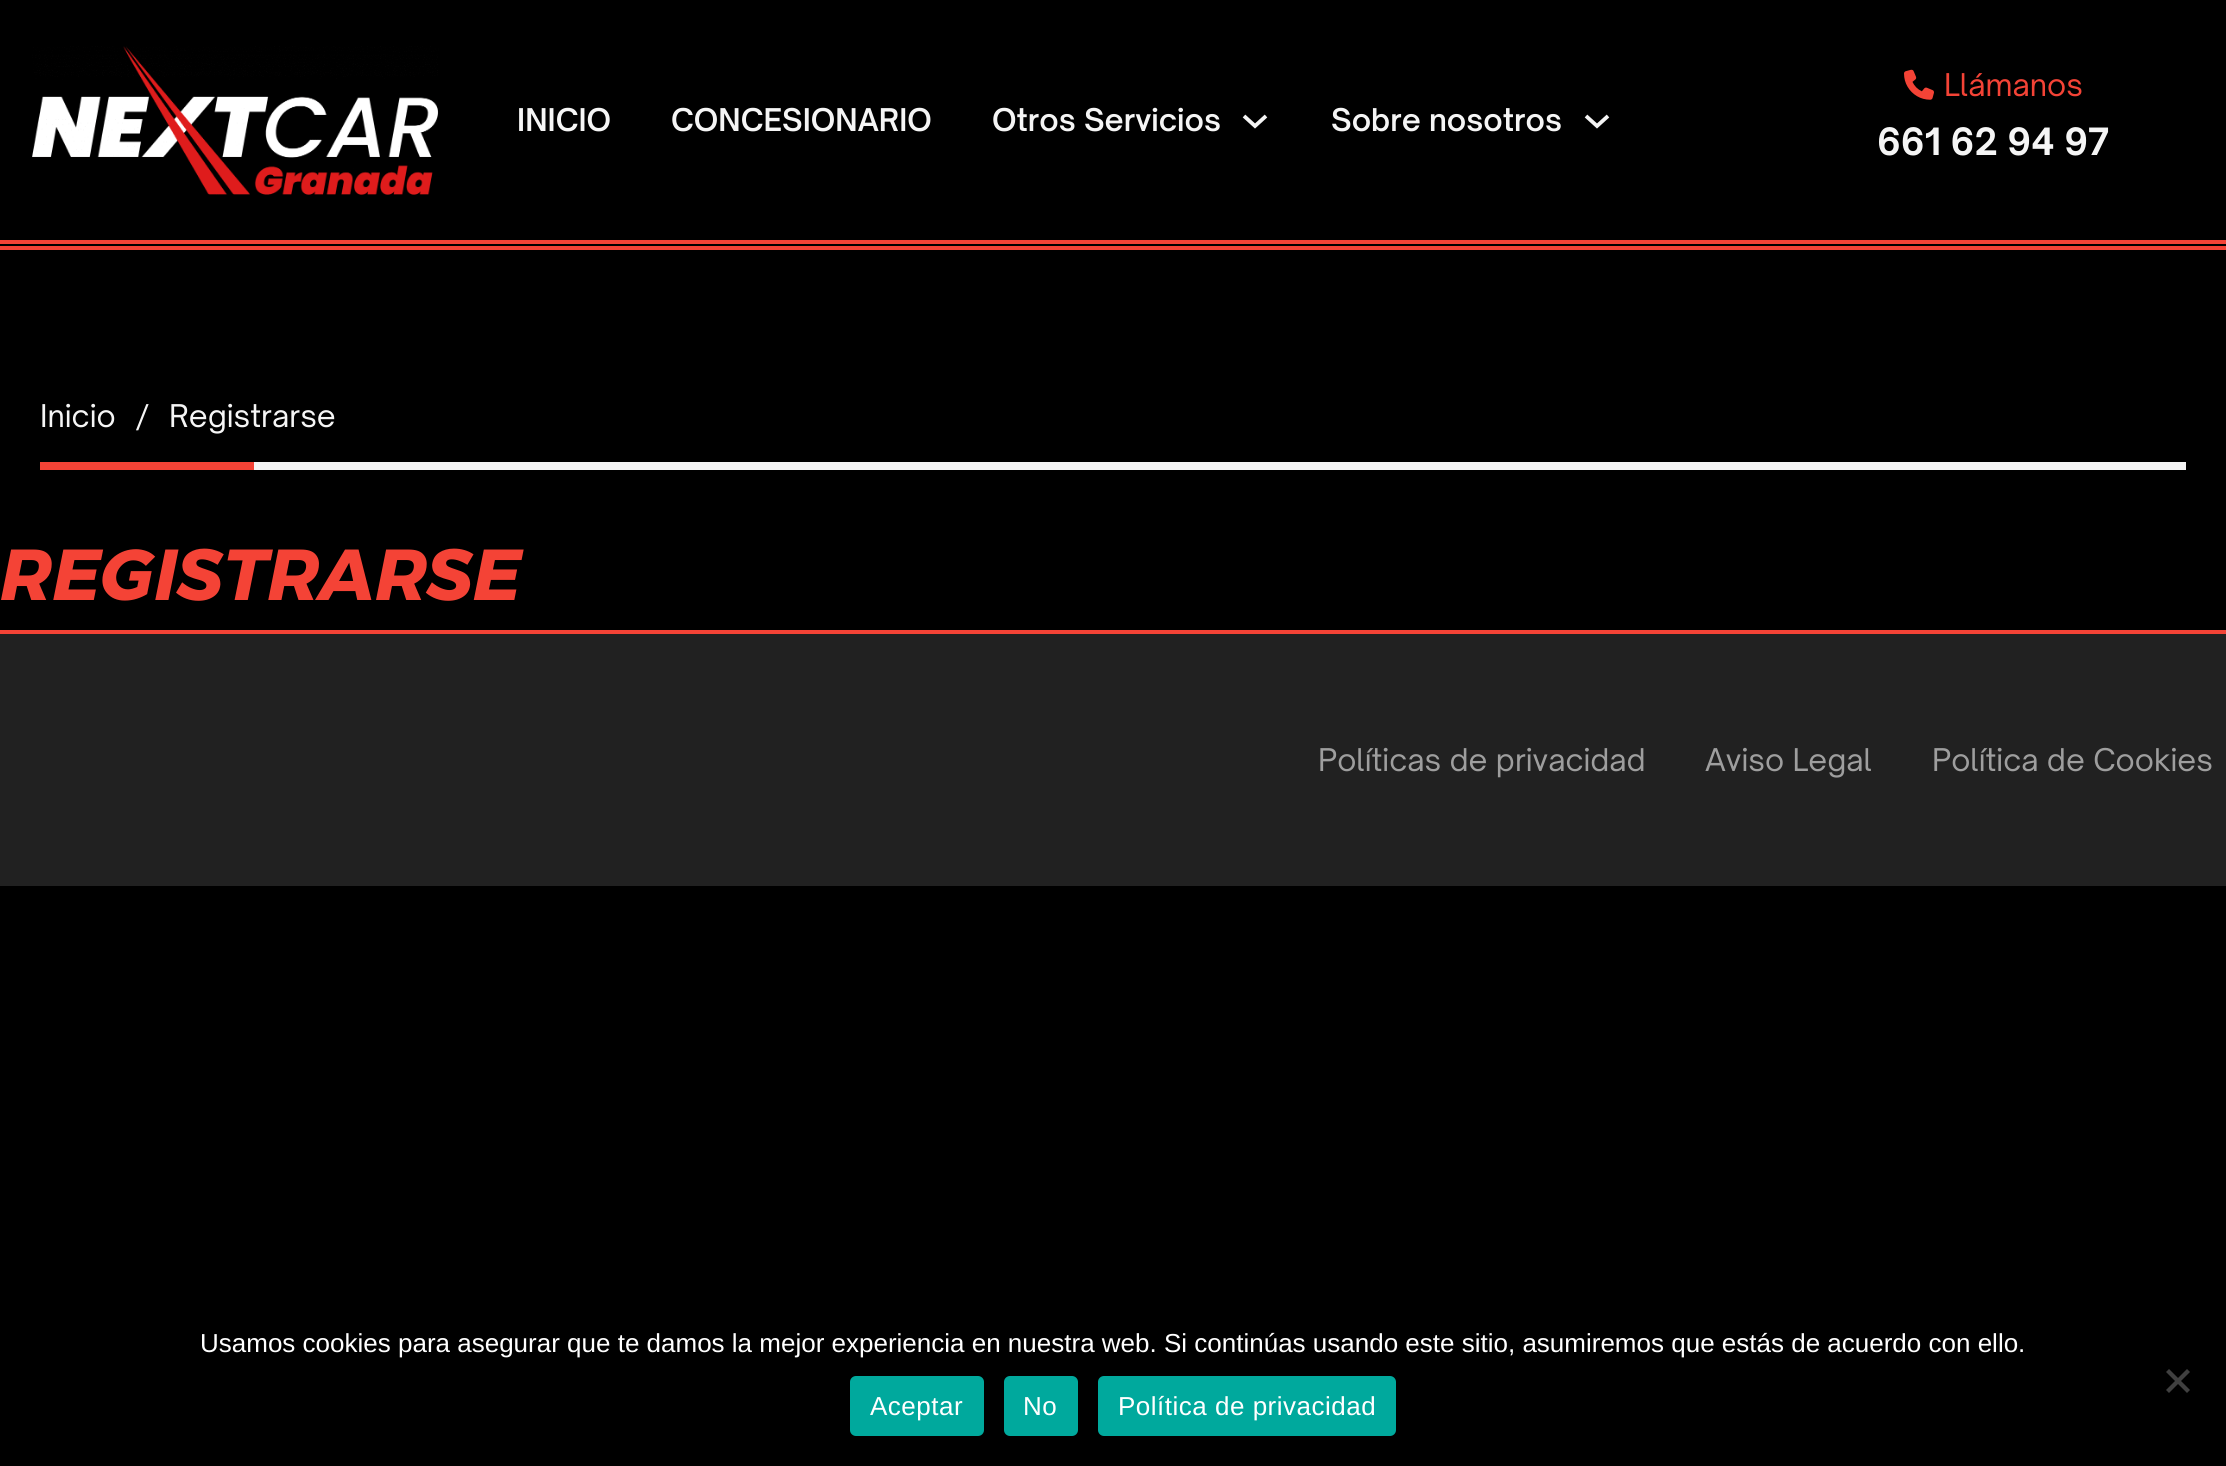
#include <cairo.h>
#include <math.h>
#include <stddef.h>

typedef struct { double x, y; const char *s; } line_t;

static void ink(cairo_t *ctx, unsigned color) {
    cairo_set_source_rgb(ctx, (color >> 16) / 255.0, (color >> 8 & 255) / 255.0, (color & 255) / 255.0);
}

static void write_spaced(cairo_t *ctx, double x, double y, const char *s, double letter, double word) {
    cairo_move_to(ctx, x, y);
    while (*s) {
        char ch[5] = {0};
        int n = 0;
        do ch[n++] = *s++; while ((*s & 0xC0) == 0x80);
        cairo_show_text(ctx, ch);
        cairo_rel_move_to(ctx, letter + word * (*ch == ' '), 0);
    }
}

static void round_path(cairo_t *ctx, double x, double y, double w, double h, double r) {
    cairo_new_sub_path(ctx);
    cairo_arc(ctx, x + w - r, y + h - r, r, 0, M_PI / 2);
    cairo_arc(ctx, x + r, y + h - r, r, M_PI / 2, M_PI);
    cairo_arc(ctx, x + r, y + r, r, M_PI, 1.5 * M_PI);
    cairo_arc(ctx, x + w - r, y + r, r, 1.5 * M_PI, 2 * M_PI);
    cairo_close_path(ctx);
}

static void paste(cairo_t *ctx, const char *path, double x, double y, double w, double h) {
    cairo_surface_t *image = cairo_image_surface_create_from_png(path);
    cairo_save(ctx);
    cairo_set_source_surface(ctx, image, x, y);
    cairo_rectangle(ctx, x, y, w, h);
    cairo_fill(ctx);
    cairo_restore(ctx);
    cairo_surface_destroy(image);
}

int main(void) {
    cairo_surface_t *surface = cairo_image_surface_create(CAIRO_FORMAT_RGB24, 2226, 1466);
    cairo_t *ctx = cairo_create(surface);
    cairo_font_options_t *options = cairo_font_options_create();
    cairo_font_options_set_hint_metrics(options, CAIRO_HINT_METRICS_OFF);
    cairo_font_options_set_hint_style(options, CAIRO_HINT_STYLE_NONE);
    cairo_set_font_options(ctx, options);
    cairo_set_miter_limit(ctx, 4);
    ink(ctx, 0x000000);
    cairo_paint(ctx);
    ink(ctx, 0xF44336);
    cairo_rectangle(ctx, 0, 240, 2226, 4);
    cairo_fill(ctx);
    cairo_rectangle(ctx, 0, 246, 2226, 4);
    cairo_fill(ctx);
    paste(ctx, "media/1.png", 32, 46, 407, 149);
    cairo_select_font_face(ctx, "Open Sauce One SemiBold", CAIRO_FONT_SLANT_NORMAL, CAIRO_FONT_WEIGHT_NORMAL);
    cairo_set_font_size(ctx, 30);
    ink(ctx, 0xF5F5F5);
    {
        static const line_t items[] = {
            {517, 131, "INICIO"},
            {671, 131, "CONCESIONARIO"},
            {992, 131, "Otros Servicios"},
        };
        for (size_t i = 0; i < sizeof items / sizeof *items; i++) {
            cairo_move_to(ctx, items[i].x, items[i].y);
            cairo_show_text(ctx, items[i].s);
        }
    }
    cairo_new_path(ctx);
    cairo_move_to(ctx, 1244, 116);
    cairo_line_to(ctx, 1255, 126);
    cairo_line_to(ctx, 1266, 116);
    cairo_set_line_width(ctx, 3.8);
    cairo_stroke(ctx);
    cairo_move_to(ctx, 1331, 131);
    cairo_show_text(ctx, "Sobre nosotros");
    cairo_new_path(ctx);
    cairo_move_to(ctx, 1586, 116);
    cairo_line_to(ctx, 1597, 126);
    cairo_line_to(ctx, 1608, 116);
    cairo_stroke(ctx);
    paste(ctx, "media/2.png", 1904, 69, 30, 31);
    cairo_select_font_face(ctx, "Open Sauce One", CAIRO_FONT_SLANT_NORMAL, CAIRO_FONT_WEIGHT_NORMAL);
    ink(ctx, 0xF44336);
    cairo_move_to(ctx, 1944, 96);
    cairo_show_text(ctx, "Llámanos");
    cairo_select_font_face(ctx, "Open Sauce One", CAIRO_FONT_SLANT_NORMAL, CAIRO_FONT_WEIGHT_BOLD);
    cairo_set_font_size(ctx, 36);
    ink(ctx, 0xF5F5F5);
    cairo_move_to(ctx, 1877, 155);
    cairo_show_text(ctx, "661 62 94 97");
    cairo_select_font_face(ctx, "Open Sauce One", CAIRO_FONT_SLANT_NORMAL, CAIRO_FONT_WEIGHT_NORMAL);
    cairo_set_font_size(ctx, 30);
    {
        static const line_t items[] = {
            {40, 427, "Inicio"},
            {136, 427, "/"},
            {169, 427, "Registrarse"},
        };
        for (size_t i = 0; i < sizeof items / sizeof *items; i++) {
            cairo_move_to(ctx, items[i].x, items[i].y);
            cairo_show_text(ctx, items[i].s);
        }
    }
    ink(ctx, 0xF44336);
    cairo_rectangle(ctx, 40, 462, 214, 8);
    cairo_fill(ctx);
    ink(ctx, 0xF5F5F5);
    cairo_rectangle(ctx, 254, 462, 1932, 8);
    cairo_fill(ctx);
    cairo_select_font_face(ctx, "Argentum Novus", CAIRO_FONT_SLANT_ITALIC, CAIRO_FONT_WEIGHT_BOLD);
    cairo_set_font_size(ctx, 72);
    ink(ctx, 0xF44336);
    cairo_move_to(ctx, 0, 600);
    cairo_show_text(ctx, "REGISTRARSE");
    ink(ctx, 0x212121);
    cairo_rectangle(ctx, 0, 634, 2226, 252);
    cairo_fill(ctx);
    ink(ctx, 0xF44336);
    cairo_rectangle(ctx, 0, 630, 2226, 4);
    cairo_fill(ctx);
    cairo_select_font_face(ctx, "Open Sauce One", CAIRO_FONT_SLANT_NORMAL, CAIRO_FONT_WEIGHT_NORMAL);
    cairo_set_font_size(ctx, 30);
    ink(ctx, 0x9E9E9E);
    {
        static const line_t items[] = {
            {1318, 771, "Políticas de privacidad"},
            {1705, 771, "Aviso Legal"},
            {1932, 771, "Política de Cookies"},
        };
        for (size_t i = 0; i < sizeof items / sizeof *items; i++) {
            cairo_move_to(ctx, items[i].x, items[i].y);
            cairo_show_text(ctx, items[i].s);
        }
    }
    cairo_select_font_face(ctx, "Liberation Sans", CAIRO_FONT_SLANT_NORMAL, CAIRO_FONT_WEIGHT_NORMAL);
    cairo_set_font_size(ctx, 26);
    ink(ctx, 0xFFFFFF);
    cairo_move_to(ctx, 200, 1352);
    cairo_show_text(ctx, "Usamos cookies para asegurar que te damos la mejor experiencia en nuestra web. Si continúas usando este sitio, asumiremos que estás de acuerdo con ello.");
    ink(ctx, 0x404040);
    cairo_new_path(ctx);
    cairo_move_to(ctx, 2187, 1369);
    cairo_line_to(ctx, 2190, 1372);
    cairo_line_to(ctx, 2169, 1393);
    cairo_line_to(ctx, 2166, 1390);
    cairo_close_path(ctx);
    cairo_fill(ctx);
    cairo_new_path(ctx);
    cairo_move_to(ctx, 2166, 1372);
    cairo_line_to(ctx, 2169, 1369);
    cairo_line_to(ctx, 2190, 1390);
    cairo_line_to(ctx, 2187, 1393);
    cairo_close_path(ctx);
    cairo_fill(ctx);
    ink(ctx, 0x00A99D);
    round_path(ctx, 850, 1376, 134, 60, 6);
    cairo_fill(ctx);
    ink(ctx, 0xFFFFFF);
    write_spaced(ctx, 870, 1415, "Aceptar", 0.5, 0);
    ink(ctx, 0x00A99D);
    round_path(ctx, 1004, 1376, 74, 60, 6);
    cairo_fill(ctx);
    ink(ctx, 0xFFFFFF);
    write_spaced(ctx, 1023, 1415, "No", 0.5, 0);
    ink(ctx, 0x00A99D);
    round_path(ctx, 1098, 1376, 298, 60, 6);
    cairo_fill(ctx);
    ink(ctx, 0xFFFFFF);
    write_spaced(ctx, 1118, 1415, "Política de privacidad", 0.5, 0);
    cairo_surface_write_to_png(surface, "image.png");
    cairo_font_options_destroy(options);
    cairo_destroy(ctx);
    cairo_surface_destroy(surface);
    return 0;
}
